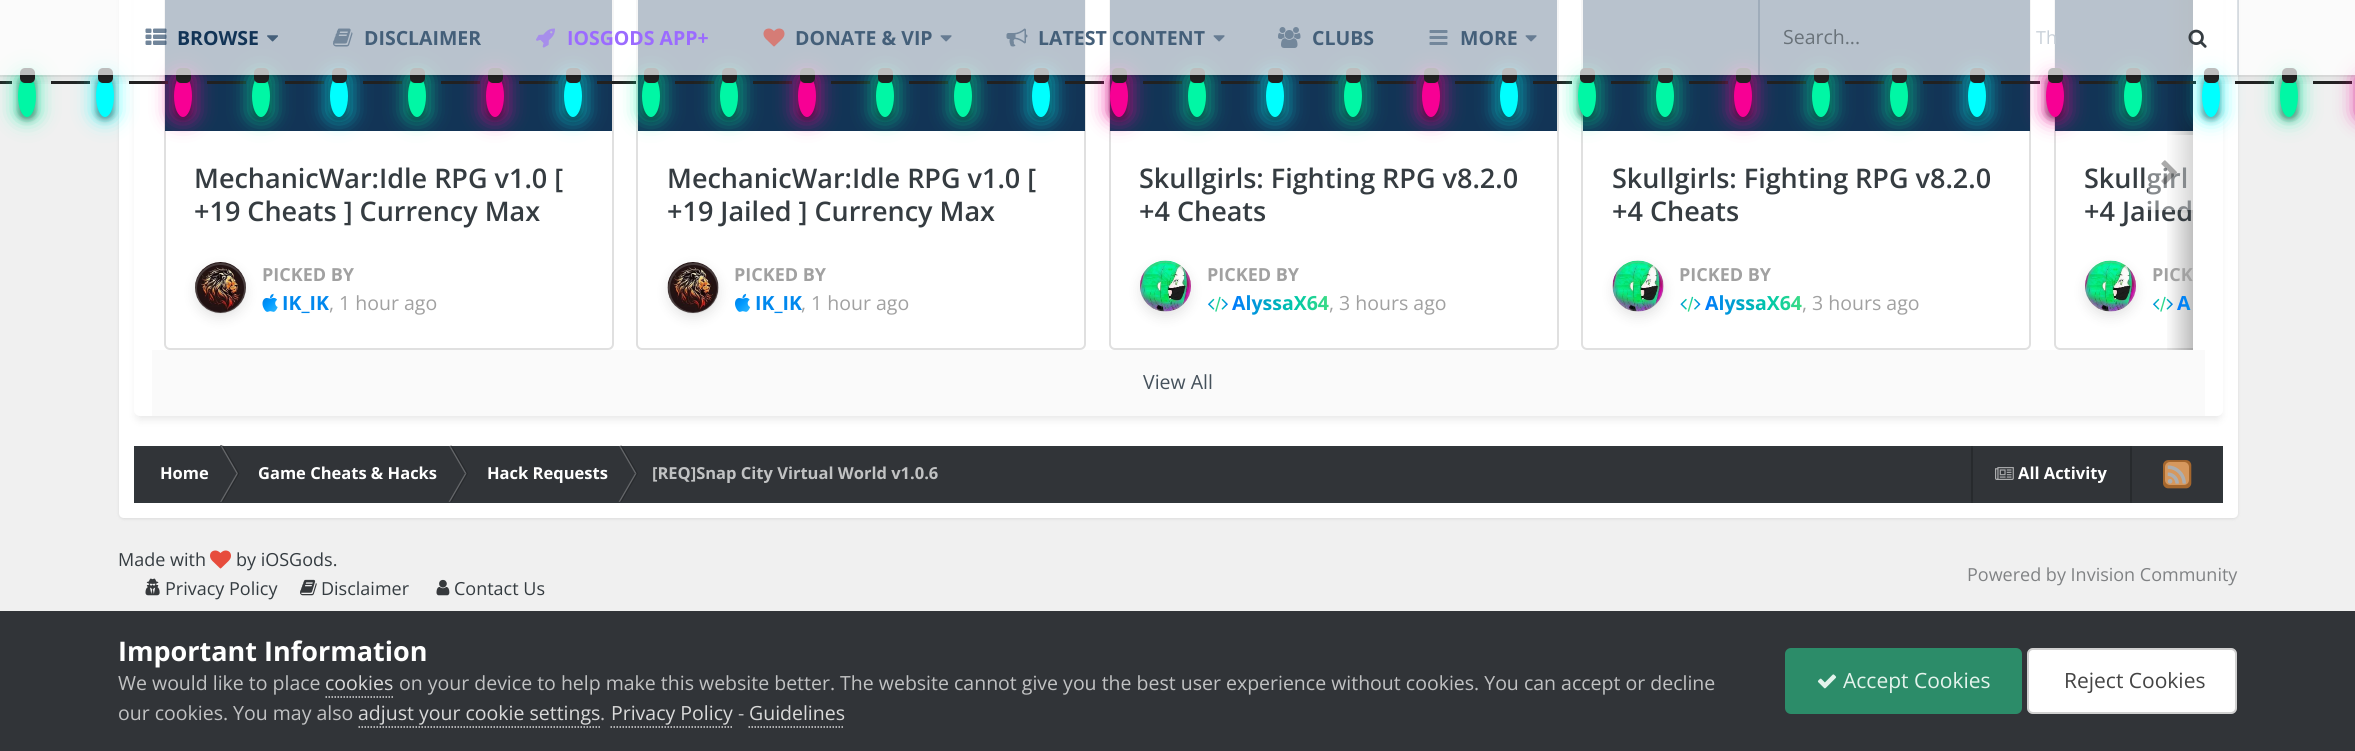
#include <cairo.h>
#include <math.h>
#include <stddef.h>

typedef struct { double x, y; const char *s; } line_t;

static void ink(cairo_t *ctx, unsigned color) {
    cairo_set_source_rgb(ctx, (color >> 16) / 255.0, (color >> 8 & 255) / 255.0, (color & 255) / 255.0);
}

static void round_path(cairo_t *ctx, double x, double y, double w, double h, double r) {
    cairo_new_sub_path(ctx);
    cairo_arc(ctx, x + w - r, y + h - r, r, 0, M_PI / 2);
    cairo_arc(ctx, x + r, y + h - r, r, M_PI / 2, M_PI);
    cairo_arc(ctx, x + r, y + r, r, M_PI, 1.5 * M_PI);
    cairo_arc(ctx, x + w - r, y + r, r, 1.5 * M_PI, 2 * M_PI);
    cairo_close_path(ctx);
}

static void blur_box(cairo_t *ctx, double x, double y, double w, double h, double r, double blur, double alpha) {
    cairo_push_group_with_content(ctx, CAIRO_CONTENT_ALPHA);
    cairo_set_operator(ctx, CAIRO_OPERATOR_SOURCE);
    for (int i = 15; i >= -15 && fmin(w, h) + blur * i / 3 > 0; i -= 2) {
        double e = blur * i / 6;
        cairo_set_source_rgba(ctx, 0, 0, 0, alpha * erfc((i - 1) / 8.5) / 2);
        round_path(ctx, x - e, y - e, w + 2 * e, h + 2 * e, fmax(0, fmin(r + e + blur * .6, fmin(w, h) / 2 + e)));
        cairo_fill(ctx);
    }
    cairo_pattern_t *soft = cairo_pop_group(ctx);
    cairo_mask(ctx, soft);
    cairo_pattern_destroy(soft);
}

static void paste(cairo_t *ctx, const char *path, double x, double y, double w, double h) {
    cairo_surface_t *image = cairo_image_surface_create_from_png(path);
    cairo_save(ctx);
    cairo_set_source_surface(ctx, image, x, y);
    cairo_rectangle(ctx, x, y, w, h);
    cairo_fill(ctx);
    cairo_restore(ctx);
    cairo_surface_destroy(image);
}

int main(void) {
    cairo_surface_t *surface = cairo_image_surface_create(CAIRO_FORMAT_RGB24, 2355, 751);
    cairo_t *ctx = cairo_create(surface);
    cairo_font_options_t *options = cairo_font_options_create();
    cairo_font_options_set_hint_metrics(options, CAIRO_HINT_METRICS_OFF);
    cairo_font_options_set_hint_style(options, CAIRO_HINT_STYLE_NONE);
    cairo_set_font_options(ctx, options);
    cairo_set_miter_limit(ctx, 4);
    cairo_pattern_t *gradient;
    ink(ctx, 0xF0F0F0);
    cairo_paint(ctx);
    ink(ctx, 0x222222);
    cairo_rectangle(ctx, 0, 81, 12, 3);
    cairo_fill(ctx);
    ink(ctx, 0x00F7A5);
    blur_box(ctx, 18, 75, 18, 42, 9, 10.5, 0.8);
    ink(ctx, 0x000000);
    blur_box(ctx, 18, 78, 18, 42, 9, 3, 0.35);
    ink(ctx, 0x00F7A5);
    cairo_new_path(ctx);
    cairo_move_to(ctx, 27, 75);
    cairo_curve_to(ctx, 32, 75, 36, 84.5, 36, 96);
    cairo_curve_to(ctx, 36, 107.5, 32, 117, 27, 117);
    cairo_curve_to(ctx, 22, 117, 18, 107.5, 18, 96);
    cairo_curve_to(ctx, 18, 84.5, 22, 75, 27, 75);
    cairo_close_path(ctx);
    cairo_fill(ctx);
    ink(ctx, 0x222222);
    round_path(ctx, 20, 68, 15, 15, 5);
    cairo_fill(ctx);
    cairo_rectangle(ctx, 51, 81, 39, 3);
    cairo_fill(ctx);
    ink(ctx, 0xDBDBDB);
    blur_box(ctx, 119, -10, 2119, 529, 5, 1.5, 1);
    ink(ctx, 0xFFFFFF);
    cairo_new_path(ctx);
    cairo_move_to(ctx, 119, -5);
    cairo_line_to(ctx, 2238, -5);
    cairo_line_to(ctx, 2238, 513);
    cairo_curve_to(ctx, 2238, 516, 2236, 518, 2233, 518);
    cairo_line_to(ctx, 124, 518);
    cairo_curve_to(ctx, 121, 518, 119, 516, 119, 513);
    cairo_close_path(ctx);
    cairo_fill(ctx);
    ink(ctx, 0x000000);
    blur_box(ctx, 137, -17, 2083, 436, 3, 4.5, 0.1);
    ink(ctx, 0xFFFFFF);
    round_path(ctx, 134, -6, 2089, 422, 6);
    cairo_fill(ctx);
    ink(ctx, 0x00FFFF);
    blur_box(ctx, 96, 75, 18, 42, 9, 10.5, 0.8);
    ink(ctx, 0x000000);
    blur_box(ctx, 96, 78, 18, 42, 9, 3, 0.35);
    ink(ctx, 0x00FFFF);
    cairo_new_path(ctx);
    cairo_move_to(ctx, 105, 75);
    cairo_curve_to(ctx, 110, 75, 114, 84.5, 114, 96);
    cairo_curve_to(ctx, 114, 107.5, 110, 117, 105, 117);
    cairo_curve_to(ctx, 100, 117, 96, 107.5, 96, 96);
    cairo_curve_to(ctx, 96, 84.5, 100, 75, 105, 75);
    cairo_close_path(ctx);
    cairo_fill(ctx);
    ink(ctx, 0x222222);
    round_path(ctx, 98, 68, 15, 15, 5);
    cairo_fill(ctx);
    round_path(ctx, 165, -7, 448, 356, 5);
    ink(ctx, 0xE0E0E0);
    cairo_stroke(ctx);
    ink(ctx, 0x123456);
    cairo_rectangle(ctx, 165, 0, 447, 131);
    cairo_fill(ctx);
    ink(ctx, 0x222222);
    cairo_rectangle(ctx, 129, 81, 39, 3);
    cairo_fill(ctx);
    ink(ctx, 0xF70094);
    blur_box(ctx, 174, 75, 18, 42, 9, 10.5, 0.9);
    ink(ctx, 0x000000);
    blur_box(ctx, 174, 78, 18, 42, 9, 3, 0.35);
    ink(ctx, 0xF70094);
    cairo_new_path(ctx);
    cairo_move_to(ctx, 183, 75);
    cairo_curve_to(ctx, 188, 75, 192, 84.5, 192, 96);
    cairo_curve_to(ctx, 192, 107.5, 188, 117, 183, 117);
    cairo_curve_to(ctx, 178, 117, 174, 107.5, 174, 96);
    cairo_curve_to(ctx, 174, 84.5, 178, 75, 183, 75);
    cairo_close_path(ctx);
    cairo_fill(ctx);
    ink(ctx, 0x222222);
    round_path(ctx, 176, 68, 15, 15, 5);
    cairo_fill(ctx);
    cairo_rectangle(ctx, 207, 81, 39, 3);
    cairo_fill(ctx);
    ink(ctx, 0x00F7A5);
    blur_box(ctx, 252, 75, 18, 42, 9, 10.5, 0.8);
    ink(ctx, 0x000000);
    blur_box(ctx, 252, 78, 18, 42, 9, 3, 0.35);
    ink(ctx, 0x00F7A5);
    cairo_new_path(ctx);
    cairo_move_to(ctx, 261, 75);
    cairo_curve_to(ctx, 266, 75, 270, 84.5, 270, 96);
    cairo_curve_to(ctx, 270, 107.5, 266, 117, 261, 117);
    cairo_curve_to(ctx, 256, 117, 252, 107.5, 252, 96);
    cairo_curve_to(ctx, 252, 84.5, 256, 75, 261, 75);
    cairo_close_path(ctx);
    cairo_fill(ctx);
    ink(ctx, 0x222222);
    round_path(ctx, 254, 68, 15, 15, 5);
    cairo_fill(ctx);
    cairo_rectangle(ctx, 285, 81, 39, 3);
    cairo_fill(ctx);
    ink(ctx, 0x00FFFF);
    blur_box(ctx, 330, 75, 18, 42, 9, 10.5, 0.8);
    ink(ctx, 0x000000);
    blur_box(ctx, 330, 78, 18, 42, 9, 3, 0.35);
    ink(ctx, 0x00FFFF);
    cairo_new_path(ctx);
    cairo_move_to(ctx, 339, 75);
    cairo_curve_to(ctx, 344, 75, 348, 84.5, 348, 96);
    cairo_curve_to(ctx, 348, 107.5, 344, 117, 339, 117);
    cairo_curve_to(ctx, 334, 117, 330, 107.5, 330, 96);
    cairo_curve_to(ctx, 330, 84.5, 334, 75, 339, 75);
    cairo_close_path(ctx);
    cairo_fill(ctx);
    ink(ctx, 0x222222);
    round_path(ctx, 332, 68, 15, 15, 5);
    cairo_fill(ctx);
    cairo_rectangle(ctx, 363, 81, 39, 3);
    cairo_fill(ctx);
    ink(ctx, 0x00F7A5);
    blur_box(ctx, 408, 75, 18, 42, 9, 10.5, 0.8);
    ink(ctx, 0x000000);
    blur_box(ctx, 408, 78, 18, 42, 9, 3, 0.35);
    ink(ctx, 0x00F7A5);
    cairo_new_path(ctx);
    cairo_move_to(ctx, 417, 75);
    cairo_curve_to(ctx, 422, 75, 426, 84.5, 426, 96);
    cairo_curve_to(ctx, 426, 107.5, 422, 117, 417, 117);
    cairo_curve_to(ctx, 412, 117, 408, 107.5, 408, 96);
    cairo_curve_to(ctx, 408, 84.5, 412, 75, 417, 75);
    cairo_close_path(ctx);
    cairo_fill(ctx);
    ink(ctx, 0x222222);
    round_path(ctx, 410, 68, 15, 15, 5);
    cairo_fill(ctx);
    cairo_rectangle(ctx, 441, 81, 39, 3);
    cairo_fill(ctx);
    ink(ctx, 0xF70094);
    blur_box(ctx, 486, 75, 18, 42, 9, 10.5, 0.9);
    ink(ctx, 0x000000);
    blur_box(ctx, 486, 78, 18, 42, 9, 3, 0.35);
    ink(ctx, 0xF70094);
    cairo_new_path(ctx);
    cairo_move_to(ctx, 495, 75);
    cairo_curve_to(ctx, 500, 75, 504, 84.5, 504, 96);
    cairo_curve_to(ctx, 504, 107.5, 500, 117, 495, 117);
    cairo_curve_to(ctx, 490, 117, 486, 107.5, 486, 96);
    cairo_curve_to(ctx, 486, 84.5, 490, 75, 495, 75);
    cairo_close_path(ctx);
    cairo_fill(ctx);
    ink(ctx, 0x222222);
    round_path(ctx, 488, 68, 15, 15, 5);
    cairo_fill(ctx);
    cairo_rectangle(ctx, 519, 81, 39, 3);
    cairo_fill(ctx);
    ink(ctx, 0x00FFFF);
    blur_box(ctx, 564, 75, 18, 42, 9, 10.5, 0.8);
    ink(ctx, 0x000000);
    blur_box(ctx, 564, 78, 18, 42, 9, 3, 0.35);
    ink(ctx, 0x00FFFF);
    cairo_new_path(ctx);
    cairo_move_to(ctx, 573, 75);
    cairo_curve_to(ctx, 578, 75, 582, 84.5, 582, 96);
    cairo_curve_to(ctx, 582, 107.5, 578, 117, 573, 117);
    cairo_curve_to(ctx, 568, 117, 564, 107.5, 564, 96);
    cairo_curve_to(ctx, 564, 84.5, 568, 75, 573, 75);
    cairo_close_path(ctx);
    cairo_fill(ctx);
    ink(ctx, 0x222222);
    round_path(ctx, 566, 68, 15, 15, 5);
    cairo_fill(ctx);
    cairo_rectangle(ctx, 597, 81, 39, 3);
    cairo_fill(ctx);
    round_path(ctx, 637, -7, 448, 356, 5);
    ink(ctx, 0xE0E0E0);
    cairo_stroke(ctx);
    ink(ctx, 0x123456);
    cairo_rectangle(ctx, 638, 0, 447, 131);
    cairo_fill(ctx);
    ink(ctx, 0x00F7A5);
    blur_box(ctx, 642, 75, 18, 42, 9, 10.5, 0.8);
    ink(ctx, 0x000000);
    blur_box(ctx, 642, 78, 18, 42, 9, 3, 0.35);
    ink(ctx, 0x00F7A5);
    cairo_new_path(ctx);
    cairo_move_to(ctx, 651, 75);
    cairo_curve_to(ctx, 656, 75, 660, 84.5, 660, 96);
    cairo_curve_to(ctx, 660, 107.5, 656, 117, 651, 117);
    cairo_curve_to(ctx, 646, 117, 642, 107.5, 642, 96);
    cairo_curve_to(ctx, 642, 84.5, 646, 75, 651, 75);
    cairo_close_path(ctx);
    cairo_fill(ctx);
    ink(ctx, 0x222222);
    round_path(ctx, 644, 68, 15, 15, 5);
    cairo_fill(ctx);
    cairo_rectangle(ctx, 675, 81, 39, 3);
    cairo_fill(ctx);
    ink(ctx, 0x00F7A5);
    blur_box(ctx, 720, 75, 18, 42, 9, 10.5, 0.8);
    ink(ctx, 0x000000);
    blur_box(ctx, 720, 78, 18, 42, 9, 3, 0.35);
    ink(ctx, 0x00F7A5);
    cairo_new_path(ctx);
    cairo_move_to(ctx, 729, 75);
    cairo_curve_to(ctx, 734, 75, 738, 84.5, 738, 96);
    cairo_curve_to(ctx, 738, 107.5, 734, 117, 729, 117);
    cairo_curve_to(ctx, 724, 117, 720, 107.5, 720, 96);
    cairo_curve_to(ctx, 720, 84.5, 724, 75, 729, 75);
    cairo_close_path(ctx);
    cairo_fill(ctx);
    ink(ctx, 0x222222);
    round_path(ctx, 722, 68, 15, 15, 5);
    cairo_fill(ctx);
    cairo_rectangle(ctx, 753, 81, 39, 3);
    cairo_fill(ctx);
    ink(ctx, 0xF70094);
    blur_box(ctx, 798, 75, 18, 42, 9, 10.5, 0.9);
    ink(ctx, 0x000000);
    blur_box(ctx, 798, 78, 18, 42, 9, 3, 0.35);
    ink(ctx, 0xF70094);
    cairo_new_path(ctx);
    cairo_move_to(ctx, 807, 75);
    cairo_curve_to(ctx, 812, 75, 816, 84.5, 816, 96);
    cairo_curve_to(ctx, 816, 107.5, 812, 117, 807, 117);
    cairo_curve_to(ctx, 802, 117, 798, 107.5, 798, 96);
    cairo_curve_to(ctx, 798, 84.5, 802, 75, 807, 75);
    cairo_close_path(ctx);
    cairo_fill(ctx);
    ink(ctx, 0x222222);
    round_path(ctx, 800, 68, 15, 15, 5);
    cairo_fill(ctx);
    cairo_rectangle(ctx, 831, 81, 39, 3);
    cairo_fill(ctx);
    ink(ctx, 0x00F7A5);
    blur_box(ctx, 876, 75, 18, 42, 9, 10.5, 0.8);
    ink(ctx, 0x000000);
    blur_box(ctx, 876, 78, 18, 42, 9, 3, 0.35);
    ink(ctx, 0x00F7A5);
    cairo_new_path(ctx);
    cairo_move_to(ctx, 885, 75);
    cairo_curve_to(ctx, 890, 75, 894, 84.5, 894, 96);
    cairo_curve_to(ctx, 894, 107.5, 890, 117, 885, 117);
    cairo_curve_to(ctx, 880, 117, 876, 107.5, 876, 96);
    cairo_curve_to(ctx, 876, 84.5, 880, 75, 885, 75);
    cairo_close_path(ctx);
    cairo_fill(ctx);
    ink(ctx, 0x222222);
    round_path(ctx, 878, 68, 15, 15, 5);
    cairo_fill(ctx);
    cairo_rectangle(ctx, 909, 81, 39, 3);
    cairo_fill(ctx);
    ink(ctx, 0x00F7A5);
    blur_box(ctx, 954, 75, 18, 42, 9, 10.5, 0.8);
    ink(ctx, 0x000000);
    blur_box(ctx, 954, 78, 18, 42, 9, 3, 0.35);
    ink(ctx, 0x00F7A5);
    cairo_new_path(ctx);
    cairo_move_to(ctx, 963, 75);
    cairo_curve_to(ctx, 968, 75, 972, 84.5, 972, 96);
    cairo_curve_to(ctx, 972, 107.5, 968, 117, 963, 117);
    cairo_curve_to(ctx, 958, 117, 954, 107.5, 954, 96);
    cairo_curve_to(ctx, 954, 84.5, 958, 75, 963, 75);
    cairo_close_path(ctx);
    cairo_fill(ctx);
    ink(ctx, 0x222222);
    round_path(ctx, 956, 68, 15, 15, 5);
    cairo_fill(ctx);
    cairo_rectangle(ctx, 987, 81, 39, 3);
    cairo_fill(ctx);
    ink(ctx, 0x00FFFF);
    blur_box(ctx, 1032, 75, 18, 42, 9, 10.5, 0.8);
    ink(ctx, 0x000000);
    blur_box(ctx, 1032, 78, 18, 42, 9, 3, 0.35);
    ink(ctx, 0x00FFFF);
    cairo_new_path(ctx);
    cairo_move_to(ctx, 1041, 75);
    cairo_curve_to(ctx, 1046, 75, 1050, 84.5, 1050, 96);
    cairo_curve_to(ctx, 1050, 107.5, 1046, 117, 1041, 117);
    cairo_curve_to(ctx, 1036, 117, 1032, 107.5, 1032, 96);
    cairo_curve_to(ctx, 1032, 84.5, 1036, 75, 1041, 75);
    cairo_close_path(ctx);
    cairo_fill(ctx);
    ink(ctx, 0x222222);
    round_path(ctx, 1034, 68, 15, 15, 5);
    cairo_fill(ctx);
    cairo_rectangle(ctx, 1065, 81, 39, 3);
    cairo_fill(ctx);
    round_path(ctx, 1110, -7, 448, 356, 5);
    ink(ctx, 0xE0E0E0);
    cairo_stroke(ctx);
    ink(ctx, 0x123456);
    cairo_rectangle(ctx, 1110, 0, 447, 131);
    cairo_fill(ctx);
    ink(ctx, 0xF70094);
    blur_box(ctx, 1110, 75, 18, 42, 9, 10.5, 0.9);
    ink(ctx, 0x000000);
    blur_box(ctx, 1110, 78, 18, 42, 9, 3, 0.35);
    ink(ctx, 0xF70094);
    cairo_new_path(ctx);
    cairo_move_to(ctx, 1119, 75);
    cairo_curve_to(ctx, 1124, 75, 1128, 84.5, 1128, 96);
    cairo_curve_to(ctx, 1128, 107.5, 1124, 117, 1119, 117);
    cairo_curve_to(ctx, 1114, 117, 1110, 107.5, 1110, 96);
    cairo_curve_to(ctx, 1110, 84.5, 1114, 75, 1119, 75);
    cairo_close_path(ctx);
    cairo_fill(ctx);
    ink(ctx, 0x222222);
    round_path(ctx, 1112, 68, 15, 15, 5);
    cairo_fill(ctx);
    cairo_rectangle(ctx, 1143, 81, 39, 3);
    cairo_fill(ctx);
    ink(ctx, 0x00F7A5);
    blur_box(ctx, 1188, 75, 18, 42, 9, 10.5, 0.8);
    ink(ctx, 0x000000);
    blur_box(ctx, 1188, 78, 18, 42, 9, 3, 0.35);
    ink(ctx, 0x00F7A5);
    cairo_new_path(ctx);
    cairo_move_to(ctx, 1197, 75);
    cairo_curve_to(ctx, 1202, 75, 1206, 84.5, 1206, 96);
    cairo_curve_to(ctx, 1206, 107.5, 1202, 117, 1197, 117);
    cairo_curve_to(ctx, 1192, 117, 1188, 107.5, 1188, 96);
    cairo_curve_to(ctx, 1188, 84.5, 1192, 75, 1197, 75);
    cairo_close_path(ctx);
    cairo_fill(ctx);
    ink(ctx, 0x222222);
    round_path(ctx, 1190, 68, 15, 15, 5);
    cairo_fill(ctx);
    cairo_rectangle(ctx, 1221, 81, 39, 3);
    cairo_fill(ctx);
    ink(ctx, 0x00FFFF);
    blur_box(ctx, 1266, 75, 18, 42, 9, 10.5, 0.8);
    ink(ctx, 0x000000);
    blur_box(ctx, 1266, 78, 18, 42, 9, 3, 0.35);
    ink(ctx, 0x00FFFF);
    cairo_new_path(ctx);
    cairo_move_to(ctx, 1275, 75);
    cairo_curve_to(ctx, 1280, 75, 1284, 84.5, 1284, 96);
    cairo_curve_to(ctx, 1284, 107.5, 1280, 117, 1275, 117);
    cairo_curve_to(ctx, 1270, 117, 1266, 107.5, 1266, 96);
    cairo_curve_to(ctx, 1266, 84.5, 1270, 75, 1275, 75);
    cairo_close_path(ctx);
    cairo_fill(ctx);
    ink(ctx, 0x222222);
    round_path(ctx, 1268, 68, 15, 15, 5);
    cairo_fill(ctx);
    cairo_rectangle(ctx, 1299, 81, 39, 3);
    cairo_fill(ctx);
    ink(ctx, 0x00F7A5);
    blur_box(ctx, 1344, 75, 18, 42, 9, 10.5, 0.8);
    ink(ctx, 0x000000);
    blur_box(ctx, 1344, 78, 18, 42, 9, 3, 0.35);
    ink(ctx, 0x00F7A5);
    cairo_new_path(ctx);
    cairo_move_to(ctx, 1353, 75);
    cairo_curve_to(ctx, 1358, 75, 1362, 84.5, 1362, 96);
    cairo_curve_to(ctx, 1362, 107.5, 1358, 117, 1353, 117);
    cairo_curve_to(ctx, 1348, 117, 1344, 107.5, 1344, 96);
    cairo_curve_to(ctx, 1344, 84.5, 1348, 75, 1353, 75);
    cairo_close_path(ctx);
    cairo_fill(ctx);
    ink(ctx, 0x222222);
    round_path(ctx, 1346, 68, 15, 15, 5);
    cairo_fill(ctx);
    cairo_rectangle(ctx, 1377, 81, 39, 3);
    cairo_fill(ctx);
    ink(ctx, 0xF70094);
    blur_box(ctx, 1422, 75, 18, 42, 9, 10.5, 0.9);
    ink(ctx, 0x000000);
    blur_box(ctx, 1422, 78, 18, 42, 9, 3, 0.35);
    ink(ctx, 0xF70094);
    cairo_new_path(ctx);
    cairo_move_to(ctx, 1431, 75);
    cairo_curve_to(ctx, 1436, 75, 1440, 84.5, 1440, 96);
    cairo_curve_to(ctx, 1440, 107.5, 1436, 117, 1431, 117);
    cairo_curve_to(ctx, 1426, 117, 1422, 107.5, 1422, 96);
    cairo_curve_to(ctx, 1422, 84.5, 1426, 75, 1431, 75);
    cairo_close_path(ctx);
    cairo_fill(ctx);
    ink(ctx, 0x222222);
    round_path(ctx, 1424, 68, 15, 15, 5);
    cairo_fill(ctx);
    cairo_rectangle(ctx, 1455, 81, 39, 3);
    cairo_fill(ctx);
    ink(ctx, 0x00FFFF);
    blur_box(ctx, 1500, 75, 18, 42, 9, 10.5, 0.8);
    ink(ctx, 0x000000);
    blur_box(ctx, 1500, 78, 18, 42, 9, 3, 0.35);
    ink(ctx, 0x00FFFF);
    cairo_new_path(ctx);
    cairo_move_to(ctx, 1509, 75);
    cairo_curve_to(ctx, 1514, 75, 1518, 84.5, 1518, 96);
    cairo_curve_to(ctx, 1518, 107.5, 1514, 117, 1509, 117);
    cairo_curve_to(ctx, 1504, 117, 1500, 107.5, 1500, 96);
    cairo_curve_to(ctx, 1500, 84.5, 1504, 75, 1509, 75);
    cairo_close_path(ctx);
    cairo_fill(ctx);
    ink(ctx, 0x222222);
    round_path(ctx, 1502, 68, 15, 15, 5);
    cairo_fill(ctx);
    cairo_rectangle(ctx, 1533, 81, 39, 3);
    cairo_fill(ctx);
    round_path(ctx, 1582, -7, 448, 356, 5);
    ink(ctx, 0xE0E0E0);
    cairo_stroke(ctx);
    ink(ctx, 0x123456);
    cairo_rectangle(ctx, 1583, 0, 447, 131);
    cairo_fill(ctx);
    ink(ctx, 0x00F7A5);
    blur_box(ctx, 1578, 75, 18, 42, 9, 10.5, 0.8);
    ink(ctx, 0x000000);
    blur_box(ctx, 1578, 78, 18, 42, 9, 3, 0.35);
    ink(ctx, 0x00F7A5);
    cairo_new_path(ctx);
    cairo_move_to(ctx, 1587, 75);
    cairo_curve_to(ctx, 1592, 75, 1596, 84.5, 1596, 96);
    cairo_curve_to(ctx, 1596, 107.5, 1592, 117, 1587, 117);
    cairo_curve_to(ctx, 1582, 117, 1578, 107.5, 1578, 96);
    cairo_curve_to(ctx, 1578, 84.5, 1582, 75, 1587, 75);
    cairo_close_path(ctx);
    cairo_fill(ctx);
    ink(ctx, 0x222222);
    round_path(ctx, 1580, 68, 15, 15, 5);
    cairo_fill(ctx);
    cairo_rectangle(ctx, 1611, 81, 39, 3);
    cairo_fill(ctx);
    ink(ctx, 0x00F7A5);
    blur_box(ctx, 1656, 75, 18, 42, 9, 10.5, 0.8);
    ink(ctx, 0x000000);
    blur_box(ctx, 1656, 78, 18, 42, 9, 3, 0.35);
    ink(ctx, 0x00F7A5);
    cairo_new_path(ctx);
    cairo_move_to(ctx, 1665, 75);
    cairo_curve_to(ctx, 1670, 75, 1674, 84.5, 1674, 96);
    cairo_curve_to(ctx, 1674, 107.5, 1670, 117, 1665, 117);
    cairo_curve_to(ctx, 1660, 117, 1656, 107.5, 1656, 96);
    cairo_curve_to(ctx, 1656, 84.5, 1660, 75, 1665, 75);
    cairo_close_path(ctx);
    cairo_fill(ctx);
    ink(ctx, 0x222222);
    round_path(ctx, 1658, 68, 15, 15, 5);
    cairo_fill(ctx);
    cairo_rectangle(ctx, 1689, 81, 39, 3);
    cairo_fill(ctx);
    ink(ctx, 0xF70094);
    blur_box(ctx, 1734, 75, 18, 42, 9, 10.5, 0.9);
    ink(ctx, 0x000000);
    blur_box(ctx, 1734, 78, 18, 42, 9, 3, 0.35);
    ink(ctx, 0xF70094);
    cairo_new_path(ctx);
    cairo_move_to(ctx, 1743, 75);
    cairo_curve_to(ctx, 1748, 75, 1752, 84.5, 1752, 96);
    cairo_curve_to(ctx, 1752, 107.5, 1748, 117, 1743, 117);
    cairo_curve_to(ctx, 1738, 117, 1734, 107.5, 1734, 96);
    cairo_curve_to(ctx, 1734, 84.5, 1738, 75, 1743, 75);
    cairo_close_path(ctx);
    cairo_fill(ctx);
    ink(ctx, 0x222222);
    round_path(ctx, 1736, 68, 15, 15, 5);
    cairo_fill(ctx);
    cairo_rectangle(ctx, 1767, 81, 39, 3);
    cairo_fill(ctx);
    ink(ctx, 0x00F7A5);
    blur_box(ctx, 1812, 75, 18, 42, 9, 10.5, 0.8);
    ink(ctx, 0x000000);
    blur_box(ctx, 1812, 78, 18, 42, 9, 3, 0.35);
    ink(ctx, 0x00F7A5);
    cairo_new_path(ctx);
    cairo_move_to(ctx, 1821, 75);
    cairo_curve_to(ctx, 1826, 75, 1830, 84.5, 1830, 96);
    cairo_curve_to(ctx, 1830, 107.5, 1826, 117, 1821, 117);
    cairo_curve_to(ctx, 1816, 117, 1812, 107.5, 1812, 96);
    cairo_curve_to(ctx, 1812, 84.5, 1816, 75, 1821, 75);
    cairo_close_path(ctx);
    cairo_fill(ctx);
    ink(ctx, 0x222222);
    round_path(ctx, 1814, 68, 15, 15, 5);
    cairo_fill(ctx);
    cairo_rectangle(ctx, 1845, 81, 39, 3);
    cairo_fill(ctx);
    ink(ctx, 0x00F7A5);
    blur_box(ctx, 1890, 75, 18, 42, 9, 10.5, 0.8);
    ink(ctx, 0x000000);
    blur_box(ctx, 1890, 78, 18, 42, 9, 3, 0.35);
    ink(ctx, 0x00F7A5);
    cairo_new_path(ctx);
    cairo_move_to(ctx, 1899, 75);
    cairo_curve_to(ctx, 1904, 75, 1908, 84.5, 1908, 96);
    cairo_curve_to(ctx, 1908, 107.5, 1904, 117, 1899, 117);
    cairo_curve_to(ctx, 1894, 117, 1890, 107.5, 1890, 96);
    cairo_curve_to(ctx, 1890, 84.5, 1894, 75, 1899, 75);
    cairo_close_path(ctx);
    cairo_fill(ctx);
    ink(ctx, 0x222222);
    round_path(ctx, 1892, 68, 15, 15, 5);
    cairo_fill(ctx);
    cairo_rectangle(ctx, 1923, 81, 39, 3);
    cairo_fill(ctx);
    ink(ctx, 0x00FFFF);
    blur_box(ctx, 1968, 75, 18, 42, 9, 10.5, 0.8);
    ink(ctx, 0x000000);
    blur_box(ctx, 1968, 78, 18, 42, 9, 3, 0.35);
    ink(ctx, 0x00FFFF);
    cairo_new_path(ctx);
    cairo_move_to(ctx, 1977, 75);
    cairo_curve_to(ctx, 1982, 75, 1986, 84.5, 1986, 96);
    cairo_curve_to(ctx, 1986, 107.5, 1982, 117, 1977, 117);
    cairo_curve_to(ctx, 1972, 117, 1968, 107.5, 1968, 96);
    cairo_curve_to(ctx, 1968, 84.5, 1972, 75, 1977, 75);
    cairo_close_path(ctx);
    cairo_fill(ctx);
    ink(ctx, 0x222222);
    round_path(ctx, 1970, 68, 15, 15, 5);
    cairo_fill(ctx);
    cairo_rectangle(ctx, 2001, 81, 39, 3);
    cairo_fill(ctx);
    cairo_save(ctx);
    cairo_rectangle(ctx, 164, 0, 2029, 350);
    cairo_clip(ctx);
    round_path(ctx, 2055, -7, 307, 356, 5);
    ink(ctx, 0xE0E0E0);
    cairo_stroke(ctx);
    cairo_restore(ctx);
    ink(ctx, 0x123456);
    cairo_rectangle(ctx, 2055, 0, 138, 131);
    cairo_fill(ctx);
    ink(ctx, 0xF70094);
    blur_box(ctx, 2046, 75, 18, 42, 9, 10.5, 0.9);
    ink(ctx, 0x000000);
    blur_box(ctx, 2046, 78, 18, 42, 9, 3, 0.35);
    ink(ctx, 0xF70094);
    cairo_new_path(ctx);
    cairo_move_to(ctx, 2055, 75);
    cairo_curve_to(ctx, 2060, 75, 2064, 84.5, 2064, 96);
    cairo_curve_to(ctx, 2064, 107.5, 2060, 117, 2055, 117);
    cairo_curve_to(ctx, 2050, 117, 2046, 107.5, 2046, 96);
    cairo_curve_to(ctx, 2046, 84.5, 2050, 75, 2055, 75);
    cairo_close_path(ctx);
    cairo_fill(ctx);
    ink(ctx, 0x222222);
    round_path(ctx, 2048, 68, 15, 15, 5);
    cairo_fill(ctx);
    cairo_rectangle(ctx, 2079, 81, 39, 3);
    cairo_fill(ctx);
    paste(ctx, "media/16.png", 2085, 260, 51, 52);
    cairo_save(ctx);
    cairo_set_fill_rule(ctx, CAIRO_FILL_RULE_EVEN_ODD);
    cairo_new_path(ctx);
    cairo_move_to(ctx, 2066, 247);
    cairo_line_to(ctx, 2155, 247);
    cairo_line_to(ctx, 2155, 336);
    cairo_line_to(ctx, 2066, 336);
    cairo_close_path(ctx);
    cairo_move_to(ctx, 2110.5, 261);
    cairo_curve_to(ctx, 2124.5, 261, 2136, 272.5, 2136, 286.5);
    cairo_curve_to(ctx, 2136, 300.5, 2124.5, 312, 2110.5, 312);
    cairo_curve_to(ctx, 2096.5, 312, 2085, 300.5, 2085, 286.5);
    cairo_curve_to(ctx, 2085, 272.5, 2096.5, 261, 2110.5, 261);
    cairo_close_path(ctx);
    cairo_clip(ctx);
    ink(ctx, 0x000000);
    blur_box(ctx, 2085, 266, 51, 51, 25.5, 6, 0.1);
    cairo_restore(ctx);
    paste(ctx, "media/17.png", 2153, 296, 20, 16);
    gradient = cairo_pattern_create_linear(2163, 164, 2193, 164);
    cairo_pattern_add_color_stop_rgba(gradient, 0, 0, 0, 0, 0);
    cairo_pattern_add_color_stop_rgba(gradient, 0.24, 0, 0, 0, 0.04);
    cairo_pattern_add_color_stop_rgba(gradient, 1, 0, 0, 0, 0.25);
    cairo_set_source(ctx, gradient);
    cairo_pattern_destroy(gradient);
    cairo_rectangle(ctx, 2167, 0, 26, 350);
    cairo_fill(ctx);
    ink(ctx, 0x00F7A5);
    blur_box(ctx, 2124, 75, 18, 42, 9, 10.5, 0.8);
    ink(ctx, 0x000000);
    blur_box(ctx, 2124, 78, 18, 42, 9, 3, 0.35);
    ink(ctx, 0x00F7A5);
    cairo_new_path(ctx);
    cairo_move_to(ctx, 2133, 75);
    cairo_curve_to(ctx, 2138, 75, 2142, 84.5, 2142, 96);
    cairo_curve_to(ctx, 2142, 107.5, 2138, 117, 2133, 117);
    cairo_curve_to(ctx, 2128, 117, 2124, 107.5, 2124, 96);
    cairo_curve_to(ctx, 2124, 84.5, 2128, 75, 2133, 75);
    cairo_close_path(ctx);
    cairo_fill(ctx);
    ink(ctx, 0x222222);
    round_path(ctx, 2126, 68, 15, 15, 5);
    cairo_fill(ctx);
    cairo_rectangle(ctx, 2157, 81, 39, 3);
    cairo_fill(ctx);
    ink(ctx, 0x00FFFF);
    blur_box(ctx, 2202, 75, 18, 42, 9, 10.5, 0.8);
    ink(ctx, 0x000000);
    blur_box(ctx, 2202, 78, 18, 42, 9, 3, 0.35);
    ink(ctx, 0x00FFFF);
    cairo_new_path(ctx);
    cairo_move_to(ctx, 2211, 75);
    cairo_curve_to(ctx, 2216, 75, 2220, 84.5, 2220, 96);
    cairo_curve_to(ctx, 2220, 107.5, 2216, 117, 2211, 117);
    cairo_curve_to(ctx, 2206, 117, 2202, 107.5, 2202, 96);
    cairo_curve_to(ctx, 2202, 84.5, 2206, 75, 2211, 75);
    cairo_close_path(ctx);
    cairo_fill(ctx);
    ink(ctx, 0x222222);
    round_path(ctx, 2204, 68, 15, 15, 5);
    cairo_fill(ctx);
    cairo_rectangle(ctx, 2235, 81, 39, 3);
    cairo_fill(ctx);
    ink(ctx, 0x00F7A5);
    blur_box(ctx, 2280, 75, 18, 42, 9, 10.5, 0.8);
    ink(ctx, 0x000000);
    blur_box(ctx, 2280, 78, 18, 42, 9, 3, 0.35);
    ink(ctx, 0x00F7A5);
    cairo_new_path(ctx);
    cairo_move_to(ctx, 2289, 75);
    cairo_curve_to(ctx, 2294, 75, 2298, 84.5, 2298, 96);
    cairo_curve_to(ctx, 2298, 107.5, 2294, 117, 2289, 117);
    cairo_curve_to(ctx, 2284, 117, 2280, 107.5, 2280, 96);
    cairo_curve_to(ctx, 2280, 84.5, 2284, 75, 2289, 75);
    cairo_close_path(ctx);
    cairo_fill(ctx);
    ink(ctx, 0x222222);
    round_path(ctx, 2282, 68, 15, 15, 5);
    cairo_fill(ctx);
    cairo_rectangle(ctx, 2313, 81, 39, 3);
    cairo_fill(ctx);
    ink(ctx, 0xF70094);
    blur_box(ctx, 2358, 75, 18, 42, 9, 10.5, 0.9);
    ink(ctx, 0x000000);
    blur_box(ctx, 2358, 78, 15, 42, 9, 3, 0.35);
    cairo_set_source_rgba(ctx, 0, 0, 0, 0.05);
    cairo_rectangle(ctx, 0, 75, 2355, 2);
    cairo_fill(ctx);
    cairo_save(ctx);
    cairo_rectangle(ctx, 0, 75, 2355, 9);
    cairo_clip(ctx);
    ink(ctx, 0x000000);
    blur_box(ctx, 0, 3, 2355, 75, 0, 7.5, 0.1);
    cairo_restore(ctx);
    cairo_set_source_rgba(ctx, 1, 1, 1, 0.7);
    cairo_rectangle(ctx, 0, 0, 2355, 75);
    cairo_fill(ctx);
    paste(ctx, "media/1.png", 145, 28, 22, 17);
    cairo_select_font_face(ctx, "Open Sans", CAIRO_FONT_SLANT_NORMAL, CAIRO_FONT_WEIGHT_BOLD);
    cairo_set_font_size(ctx, 19.5);
    ink(ctx, 0x123456);
    cairo_move_to(ctx, 177, 45);
    cairo_show_text(ctx, "BROWSE");
    paste(ctx, "media/2.png", 267, 35, 11, 7);
    paste(ctx, "media/3.png", 333, 28, 20, 19);
    ink(ctx, 0x445F79);
    cairo_move_to(ctx, 364, 45);
    cairo_show_text(ctx, "DISCLAIMER");
    paste(ctx, "media/4.png", 536, 28, 19, 20);
    ink(ctx, 0x9B6BFF);
    cairo_move_to(ctx, 567, 45);
    cairo_show_text(ctx, "IOSGODS APP+");
    paste(ctx, "media/5.png", 763, 28, 22, 19);
    ink(ctx, 0x445F79);
    cairo_move_to(ctx, 795, 45);
    cairo_show_text(ctx, "DONATE & VIP");
    paste(ctx, "media/6.png", 940, 35, 12, 7);
    paste(ctx, "media/7.png", 1006, 28, 22, 19);
    cairo_move_to(ctx, 1038, 45);
    cairo_show_text(ctx, "LATEST CONTENT");
    paste(ctx, "media/6.png", 1213, 35, 12, 7);
    paste(ctx, "media/8.png", 1278, 27, 23, 21);
    cairo_move_to(ctx, 1312, 45);
    cairo_show_text(ctx, "CLUBS");
    paste(ctx, "media/9.png", 1429, 30, 19, 15);
    cairo_move_to(ctx, 1460, 45);
    cairo_show_text(ctx, "MORE");
    paste(ctx, "media/6.png", 1525, 35, 12, 7);
    cairo_set_source_rgba(ctx, 0.071, 0.204, 0.337, 0.15);
    cairo_rectangle(ctx, 2237, 0, 2, 75);
    cairo_fill(ctx);
    cairo_rectangle(ctx, 1758, 0, 2, 75);
    cairo_fill(ctx);
    cairo_select_font_face(ctx, "Open Sans", CAIRO_FONT_SLANT_NORMAL, CAIRO_FONT_WEIGHT_NORMAL);
    ink(ctx, 0x697279);
    cairo_move_to(ctx, 1783, 44);
    cairo_show_text(ctx, "Search...");
    cairo_set_font_size(ctx, 18);
    ink(ctx, 0xC8D0D8);
    cairo_move_to(ctx, 2036, 44);
    cairo_show_text(ctx, "Th");
    paste(ctx, "media/10.png", 2188, 29, 19, 19);
    cairo_save(ctx);
    cairo_rectangle(ctx, 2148, 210, 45, 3);
    cairo_clip(ctx);
    ink(ctx, 0x000000);
    blur_box(ctx, 2148, 138, 45, 75, 0, 1, 0.04);
    cairo_restore(ctx);
    cairo_select_font_face(ctx, "Open Sans SemiBold", CAIRO_FONT_SLANT_NORMAL, CAIRO_FONT_WEIGHT_NORMAL);
    cairo_set_font_size(ctx, 27);
    ink(ctx, 0x353C41);
    cairo_move_to(ctx, 2084, 188);
    cairo_show_text(ctx, "Skullgirl");
    cairo_move_to(ctx, 2084, 221);
    cairo_show_text(ctx, "+4 Jailed");
    cairo_set_source_rgba(ctx, 1, 1, 1, 0.4);
    cairo_rectangle(ctx, 2148, 135, 45, 75);
    cairo_fill(ctx);
    paste(ctx, "media/11.png", 2161, 160, 16, 25);
    ink(ctx, 0x353C41);
    cairo_move_to(ctx, 194, 188);
    cairo_show_text(ctx, "MechanicWar:Idle RPG v1.0 [");
    cairo_move_to(ctx, 194, 221);
    cairo_show_text(ctx, "+19 Cheats ] Currency Max");
    paste(ctx, "media/12.png", 195, 262, 51, 51);
    cairo_save(ctx);
    cairo_set_fill_rule(ctx, CAIRO_FILL_RULE_EVEN_ODD);
    cairo_new_path(ctx);
    cairo_move_to(ctx, 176, 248);
    cairo_line_to(ctx, 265, 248);
    cairo_line_to(ctx, 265, 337);
    cairo_line_to(ctx, 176, 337);
    cairo_close_path(ctx);
    cairo_move_to(ctx, 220.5, 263);
    cairo_curve_to(ctx, 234.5, 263, 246, 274.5, 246, 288.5);
    cairo_curve_to(ctx, 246, 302.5, 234.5, 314, 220.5, 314);
    cairo_curve_to(ctx, 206.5, 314, 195, 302.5, 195, 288.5);
    cairo_curve_to(ctx, 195, 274.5, 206.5, 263, 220.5, 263);
    cairo_close_path(ctx);
    cairo_clip(ctx);
    ink(ctx, 0x000000);
    blur_box(ctx, 195, 267, 51, 51, 25.5, 6, 0.1);
    cairo_restore(ctx);
    cairo_arc(ctx, 220.5, 288.5, 24.5, 0, 2 * M_PI);
    cairo_set_source_rgba(ctx, 0.631, 0.631, 0.631, 0.3);
    cairo_stroke(ctx);
    cairo_select_font_face(ctx, "Open Sans", CAIRO_FONT_SLANT_NORMAL, CAIRO_FONT_WEIGHT_BOLD);
    cairo_set_font_size(ctx, 18);
    ink(ctx, 0xA1A1A1);
    cairo_move_to(ctx, 262, 281);
    cairo_show_text(ctx, "PICKED BY");
    paste(ctx, "media/13.png", 262, 293, 16, 19);
    cairo_set_font_size(ctx, 19.5);
    ink(ctx, 0x0088EE);
    cairo_move_to(ctx, 282, 310);
    cairo_show_text(ctx, "IK_IK");
    cairo_select_font_face(ctx, "Open Sans", CAIRO_FONT_SLANT_NORMAL, CAIRO_FONT_WEIGHT_NORMAL);
    ink(ctx, 0xA1A1A1);
    cairo_move_to(ctx, 329, 310);
    cairo_show_text(ctx, ", 1 hour ago");
    cairo_select_font_face(ctx, "Open Sans SemiBold", CAIRO_FONT_SLANT_NORMAL, CAIRO_FONT_WEIGHT_NORMAL);
    cairo_set_font_size(ctx, 27);
    ink(ctx, 0x353C41);
    cairo_move_to(ctx, 667, 188);
    cairo_show_text(ctx, "MechanicWar:Idle RPG v1.0 [");
    cairo_move_to(ctx, 667, 221);
    cairo_show_text(ctx, "+19 Jailed ] Currency Max");
    paste(ctx, "media/14.png", 667, 262, 52, 51);
    cairo_save(ctx);
    cairo_set_fill_rule(ctx, CAIRO_FILL_RULE_EVEN_ODD);
    cairo_new_path(ctx);
    cairo_move_to(ctx, 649, 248);
    cairo_line_to(ctx, 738, 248);
    cairo_line_to(ctx, 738, 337);
    cairo_line_to(ctx, 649, 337);
    cairo_close_path(ctx);
    cairo_move_to(ctx, 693.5, 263);
    cairo_curve_to(ctx, 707.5, 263, 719, 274.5, 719, 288.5);
    cairo_curve_to(ctx, 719, 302.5, 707.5, 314, 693.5, 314);
    cairo_curve_to(ctx, 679.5, 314, 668, 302.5, 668, 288.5);
    cairo_curve_to(ctx, 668, 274.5, 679.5, 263, 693.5, 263);
    cairo_close_path(ctx);
    cairo_clip(ctx);
    ink(ctx, 0x000000);
    blur_box(ctx, 668, 267, 51, 51, 25.5, 6, 0.1);
    cairo_restore(ctx);
    cairo_arc(ctx, 693.5, 288.5, 24.5, 0, 2 * M_PI);
    cairo_set_source_rgba(ctx, 0.631, 0.631, 0.631, 0.3);
    cairo_stroke(ctx);
    cairo_select_font_face(ctx, "Open Sans", CAIRO_FONT_SLANT_NORMAL, CAIRO_FONT_WEIGHT_BOLD);
    cairo_set_font_size(ctx, 18);
    ink(ctx, 0xA1A1A1);
    cairo_move_to(ctx, 734, 281);
    cairo_show_text(ctx, "PICKED BY");
    paste(ctx, "media/15.png", 735, 293, 16, 19);
    cairo_set_font_size(ctx, 19.5);
    ink(ctx, 0x0088EE);
    cairo_move_to(ctx, 755, 310);
    cairo_show_text(ctx, "IK_IK");
    cairo_select_font_face(ctx, "Open Sans", CAIRO_FONT_SLANT_NORMAL, CAIRO_FONT_WEIGHT_NORMAL);
    ink(ctx, 0xA1A1A1);
    cairo_move_to(ctx, 801, 310);
    cairo_show_text(ctx, ", 1 hour ago");
    cairo_select_font_face(ctx, "Open Sans SemiBold", CAIRO_FONT_SLANT_NORMAL, CAIRO_FONT_WEIGHT_NORMAL);
    cairo_set_font_size(ctx, 27);
    ink(ctx, 0x353C41);
    cairo_move_to(ctx, 1139, 188);
    cairo_show_text(ctx, "Skullgirls: Fighting RPG v8.2.0");
    cairo_move_to(ctx, 1139, 221);
    cairo_show_text(ctx, "+4 Cheats");
    paste(ctx, "media/16.png", 1140, 260, 51, 52);
    cairo_save(ctx);
    cairo_set_fill_rule(ctx, CAIRO_FILL_RULE_EVEN_ODD);
    cairo_new_path(ctx);
    cairo_move_to(ctx, 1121, 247);
    cairo_line_to(ctx, 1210, 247);
    cairo_line_to(ctx, 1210, 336);
    cairo_line_to(ctx, 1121, 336);
    cairo_close_path(ctx);
    cairo_move_to(ctx, 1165.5, 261);
    cairo_curve_to(ctx, 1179.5, 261, 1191, 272.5, 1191, 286.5);
    cairo_curve_to(ctx, 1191, 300.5, 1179.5, 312, 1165.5, 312);
    cairo_curve_to(ctx, 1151.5, 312, 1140, 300.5, 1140, 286.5);
    cairo_curve_to(ctx, 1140, 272.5, 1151.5, 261, 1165.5, 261);
    cairo_close_path(ctx);
    cairo_clip(ctx);
    ink(ctx, 0x000000);
    blur_box(ctx, 1140, 266, 51, 51, 25.5, 6, 0.1);
    cairo_restore(ctx);
    cairo_arc(ctx, 1165.5, 286.5, 24.5, 0, 2 * M_PI);
    cairo_set_source_rgba(ctx, 0.631, 0.631, 0.631, 0.3);
    cairo_stroke(ctx);
    cairo_select_font_face(ctx, "Open Sans", CAIRO_FONT_SLANT_NORMAL, CAIRO_FONT_WEIGHT_BOLD);
    cairo_set_font_size(ctx, 18);
    ink(ctx, 0xA1A1A1);
    cairo_move_to(ctx, 1207, 281);
    cairo_show_text(ctx, "PICKED BY");
    paste(ctx, "media/17.png", 1208, 296, 20, 16);
    cairo_set_font_size(ctx, 19.5);
    gradient = cairo_pattern_create_linear(1232, 303, 1329, 303);
    cairo_pattern_add_color_stop_rgba(gradient, 0, 0, 0.478, 1, 1);
    cairo_pattern_add_color_stop_rgba(gradient, 0.33, 0, 0.639, 0.8, 1);
    cairo_pattern_add_color_stop_rgba(gradient, 0.67, 0, 0.788, 0.655, 1);
    cairo_pattern_add_color_stop_rgba(gradient, 1, 0.239, 0.863, 0.518, 1);
    cairo_set_source(ctx, gradient);
    cairo_pattern_destroy(gradient);
    cairo_move_to(ctx, 1232, 310);
    cairo_show_text(ctx, "AlyssaX64");
    cairo_select_font_face(ctx, "Open Sans", CAIRO_FONT_SLANT_NORMAL, CAIRO_FONT_WEIGHT_NORMAL);
    ink(ctx, 0xA1A1A1);
    cairo_move_to(ctx, 1329, 310);
    cairo_show_text(ctx, ", 3 hours ago");
    cairo_select_font_face(ctx, "Open Sans SemiBold", CAIRO_FONT_SLANT_NORMAL, CAIRO_FONT_WEIGHT_NORMAL);
    cairo_set_font_size(ctx, 27);
    ink(ctx, 0x353C41);
    cairo_move_to(ctx, 1612, 188);
    cairo_show_text(ctx, "Skullgirls: Fighting RPG v8.2.0");
    cairo_move_to(ctx, 1612, 221);
    cairo_show_text(ctx, "+4 Cheats");
    paste(ctx, "media/18.png", 1612, 260, 52, 52);
    cairo_save(ctx);
    cairo_set_fill_rule(ctx, CAIRO_FILL_RULE_EVEN_ODD);
    cairo_new_path(ctx);
    cairo_move_to(ctx, 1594, 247);
    cairo_line_to(ctx, 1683, 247);
    cairo_line_to(ctx, 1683, 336);
    cairo_line_to(ctx, 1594, 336);
    cairo_close_path(ctx);
    cairo_move_to(ctx, 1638.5, 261);
    cairo_curve_to(ctx, 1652.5, 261, 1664, 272.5, 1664, 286.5);
    cairo_curve_to(ctx, 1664, 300.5, 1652.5, 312, 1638.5, 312);
    cairo_curve_to(ctx, 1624.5, 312, 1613, 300.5, 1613, 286.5);
    cairo_curve_to(ctx, 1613, 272.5, 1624.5, 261, 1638.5, 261);
    cairo_close_path(ctx);
    cairo_clip(ctx);
    ink(ctx, 0x000000);
    blur_box(ctx, 1613, 266, 51, 51, 25.5, 6, 0.1);
    cairo_restore(ctx);
    cairo_arc(ctx, 1638.5, 286.5, 24.5, 0, 2 * M_PI);
    cairo_set_source_rgba(ctx, 0.631, 0.631, 0.631, 0.3);
    cairo_stroke(ctx);
    cairo_select_font_face(ctx, "Open Sans", CAIRO_FONT_SLANT_NORMAL, CAIRO_FONT_WEIGHT_BOLD);
    cairo_set_font_size(ctx, 18);
    ink(ctx, 0xA1A1A1);
    cairo_move_to(ctx, 1679, 281);
    cairo_show_text(ctx, "PICKED BY");
    paste(ctx, "media/19.png", 1680, 296, 21, 16);
    cairo_set_font_size(ctx, 19.5);
    gradient = cairo_pattern_create_linear(1705, 303, 1802, 303);
    cairo_pattern_add_color_stop_rgba(gradient, 0, 0, 0.478, 1, 1);
    cairo_pattern_add_color_stop_rgba(gradient, 0.33, 0, 0.639, 0.8, 1);
    cairo_pattern_add_color_stop_rgba(gradient, 0.67, 0, 0.788, 0.655, 1);
    cairo_pattern_add_color_stop_rgba(gradient, 1, 0.239, 0.863, 0.518, 1);
    cairo_set_source(ctx, gradient);
    cairo_pattern_destroy(gradient);
    cairo_move_to(ctx, 1705, 310);
    cairo_show_text(ctx, "AlyssaX64");
    cairo_select_font_face(ctx, "Open Sans", CAIRO_FONT_SLANT_NORMAL, CAIRO_FONT_WEIGHT_NORMAL);
    ink(ctx, 0xA1A1A1);
    cairo_move_to(ctx, 1802, 310);
    cairo_show_text(ctx, ", 3 hours ago");
    cairo_new_path(ctx);
    cairo_arc(ctx, 2110.5, 286.5, 24.5, 0, 2 * M_PI);
    cairo_set_source_rgba(ctx, 0.631, 0.631, 0.631, 0.3);
    cairo_stroke(ctx);
    cairo_select_font_face(ctx, "Open Sans", CAIRO_FONT_SLANT_NORMAL, CAIRO_FONT_WEIGHT_BOLD);
    cairo_set_font_size(ctx, 18);
    ink(ctx, 0xA1A1A1);
    cairo_move_to(ctx, 2152, 281);
    cairo_show_text(ctx, "PICK");
    cairo_set_font_size(ctx, 19.5);
    gradient = cairo_pattern_create_linear(2177, 303, 2274, 303);
    cairo_pattern_add_color_stop_rgba(gradient, 0, 0, 0.478, 1, 1);
    cairo_pattern_add_color_stop_rgba(gradient, 0.33, 0, 0.639, 0.8, 1);
    cairo_pattern_add_color_stop_rgba(gradient, 0.67, 0, 0.788, 0.655, 1);
    cairo_pattern_add_color_stop_rgba(gradient, 1, 0.239, 0.863, 0.518, 1);
    cairo_set_source(ctx, gradient);
    cairo_pattern_destroy(gradient);
    cairo_move_to(ctx, 2177, 310);
    cairo_show_text(ctx, "A");
    ink(ctx, 0xFAFAFA);
    cairo_rectangle(ctx, 152, 350, 2053, 66);
    cairo_fill(ctx);
    cairo_select_font_face(ctx, "Open Sans", CAIRO_FONT_SLANT_NORMAL, CAIRO_FONT_WEIGHT_NORMAL);
    ink(ctx, 0x45515B);
    cairo_move_to(ctx, 1143, 389);
    cairo_show_text(ctx, "View All");
    ink(ctx, 0x313438);
    cairo_rectangle(ctx, 134, 446, 2089, 57);
    cairo_fill(ctx);
    ink(ctx, 0x65676A);
    cairo_new_path(ctx);
    cairo_move_to(ctx, 220, 445);
    cairo_line_to(ctx, 221.5, 445);
    cairo_line_to(ctx, 238, 473.5);
    cairo_line_to(ctx, 236.5, 473.5);
    cairo_close_path(ctx);
    cairo_fill(ctx);
    cairo_set_source_rgba(ctx, 0, 0, 0, 0.2);
    cairo_new_path(ctx);
    cairo_move_to(ctx, 221.5, 445);
    cairo_line_to(ctx, 223, 445);
    cairo_line_to(ctx, 239.5, 473.5);
    cairo_line_to(ctx, 238, 473.5);
    cairo_close_path(ctx);
    cairo_fill(ctx);
    ink(ctx, 0x65676A);
    cairo_new_path(ctx);
    cairo_move_to(ctx, 220, 502);
    cairo_line_to(ctx, 221.5, 502);
    cairo_line_to(ctx, 238, 473.5);
    cairo_line_to(ctx, 236.5, 473.5);
    cairo_close_path(ctx);
    cairo_fill(ctx);
    cairo_set_source_rgba(ctx, 0, 0, 0, 0.2);
    cairo_new_path(ctx);
    cairo_move_to(ctx, 221.5, 502);
    cairo_line_to(ctx, 223, 502);
    cairo_line_to(ctx, 239.5, 473.5);
    cairo_line_to(ctx, 238, 473.5);
    cairo_close_path(ctx);
    cairo_fill(ctx);
    cairo_save(ctx);
    cairo_rectangle(ctx, 134, 446, 1837, 57);
    cairo_clip(ctx);
    ink(ctx, 0x65676A);
    cairo_new_path(ctx);
    cairo_move_to(ctx, 448.5, 445);
    cairo_line_to(ctx, 450, 445);
    cairo_line_to(ctx, 466.5, 473.5);
    cairo_line_to(ctx, 465, 473.5);
    cairo_close_path(ctx);
    cairo_fill(ctx);
    cairo_restore(ctx);
    cairo_new_path(ctx);
    cairo_move_to(ctx, 450, 445);
    cairo_line_to(ctx, 451.5, 445);
    cairo_line_to(ctx, 468, 473.5);
    cairo_line_to(ctx, 466.5, 473.5);
    cairo_close_path(ctx);
    cairo_fill(ctx);
    ink(ctx, 0x65676A);
    cairo_new_path(ctx);
    cairo_move_to(ctx, 448.5, 502);
    cairo_line_to(ctx, 450, 502);
    cairo_line_to(ctx, 466.5, 473.5);
    cairo_line_to(ctx, 465, 473.5);
    cairo_close_path(ctx);
    cairo_fill(ctx);
    cairo_set_source_rgba(ctx, 0, 0, 0, 0.2);
    cairo_new_path(ctx);
    cairo_move_to(ctx, 450, 502);
    cairo_line_to(ctx, 451.5, 502);
    cairo_line_to(ctx, 468, 473.5);
    cairo_line_to(ctx, 466.5, 473.5);
    cairo_close_path(ctx);
    cairo_fill(ctx);
    cairo_save(ctx);
    cairo_rectangle(ctx, 134, 446, 1837, 57);
    cairo_clip(ctx);
    ink(ctx, 0x65676A);
    cairo_new_path(ctx);
    cairo_move_to(ctx, 618.5, 445);
    cairo_line_to(ctx, 620, 445);
    cairo_line_to(ctx, 636.5, 473.5);
    cairo_line_to(ctx, 635, 473.5);
    cairo_close_path(ctx);
    cairo_fill(ctx);
    cairo_restore(ctx);
    cairo_new_path(ctx);
    cairo_move_to(ctx, 620, 445);
    cairo_line_to(ctx, 621.5, 445);
    cairo_line_to(ctx, 638, 473.5);
    cairo_line_to(ctx, 636.5, 473.5);
    cairo_close_path(ctx);
    cairo_fill(ctx);
    ink(ctx, 0x65676A);
    cairo_new_path(ctx);
    cairo_move_to(ctx, 618.5, 502);
    cairo_line_to(ctx, 620, 502);
    cairo_line_to(ctx, 636.5, 473.5);
    cairo_line_to(ctx, 635, 473.5);
    cairo_close_path(ctx);
    cairo_fill(ctx);
    cairo_set_source_rgba(ctx, 0, 0, 0, 0.2);
    cairo_new_path(ctx);
    cairo_move_to(ctx, 620, 502);
    cairo_line_to(ctx, 621.5, 502);
    cairo_line_to(ctx, 638, 473.5);
    cairo_line_to(ctx, 636.5, 473.5);
    cairo_close_path(ctx);
    cairo_fill(ctx);
    ink(ctx, 0x272A2D);
    cairo_rectangle(ctx, 1971, 446, 2, 57);
    cairo_fill(ctx);
    paste(ctx, "media/20.png", 1995, 467, 19, 13);
    cairo_rectangle(ctx, 2130, 446, 2, 57);
    cairo_fill(ctx);
    ink(ctx, 0xADAEAF);
    round_path(ctx, 2165, 462, 24, 23, 5);
    cairo_fill(ctx);
    paste(ctx, "media/21.png", 2163, 460, 29, 29);
    cairo_rectangle(ctx, 135, 447, 2087, 55);
    cairo_set_source_rgba(ctx, 0.208, 0.235, 0.255, 0.2);
    cairo_stroke(ctx);
    cairo_select_font_face(ctx, "Open Sans", CAIRO_FONT_SLANT_NORMAL, CAIRO_FONT_WEIGHT_BOLD);
    cairo_set_font_size(ctx, 16.5);
    ink(ctx, 0xFFFFFF);
    {
        static const line_t items[] = {
            {160, 479, "Home"},
            {258, 479, "Game Cheats & Hacks"},
            {487, 479, "Hack Requests"},
        };
        for (size_t i = 0; i < sizeof items / sizeof *items; i++) {
            cairo_move_to(ctx, items[i].x, items[i].y);
            cairo_show_text(ctx, items[i].s);
        }
    }
    ink(ctx, 0xC1C2C3);
    cairo_move_to(ctx, 652, 479);
    cairo_show_text(ctx, "[REQ]Snap City Virtual World v1.0.6");
    ink(ctx, 0xFFFFFF);
    cairo_move_to(ctx, 2018, 479);
    cairo_show_text(ctx, "All Activity");
    cairo_select_font_face(ctx, "Open Sans", CAIRO_FONT_SLANT_NORMAL, CAIRO_FONT_WEIGHT_NORMAL);
    cairo_set_font_size(ctx, 18);
    ink(ctx, 0x353C41);
    cairo_move_to(ctx, 118, 566);
    cairo_show_text(ctx, "Made with");
    paste(ctx, "media/22.png", 210, 550, 21, 19);
    cairo_move_to(ctx, 236, 566);
    cairo_show_text(ctx, "by iOSGods.");
    paste(ctx, "media/23.png", 145, 578, 15, 18);
    cairo_move_to(ctx, 165, 595);
    cairo_show_text(ctx, "Privacy Policy");
    paste(ctx, "media/24.png", 300, 579, 17, 17);
    cairo_move_to(ctx, 321, 595);
    cairo_show_text(ctx, "Disclaimer");
    paste(ctx, "media/25.png", 436, 579, 14, 17);
    cairo_move_to(ctx, 454, 595);
    cairo_show_text(ctx, "Contact Us");
    ink(ctx, 0x808284);
    cairo_move_to(ctx, 1967, 581);
    cairo_show_text(ctx, "Powered by Invision Community");
    ink(ctx, 0x313438);
    cairo_rectangle(ctx, 0, 611, 2355, 140);
    cairo_fill(ctx);
    cairo_select_font_face(ctx, "Open Sans", CAIRO_FONT_SLANT_NORMAL, CAIRO_FONT_WEIGHT_BOLD);
    cairo_set_font_size(ctx, 27);
    ink(ctx, 0xFFFFFF);
    cairo_move_to(ctx, 118, 661);
    cairo_show_text(ctx, "Important Information");
    cairo_select_font_face(ctx, "Open Sans", CAIRO_FONT_SLANT_NORMAL, CAIRO_FONT_WEIGHT_NORMAL);
    cairo_set_font_size(ctx, 19.5);
    ink(ctx, 0xC1C2C3);
    cairo_move_to(ctx, 118, 690);
    cairo_show_text(ctx, "We would like to place");
    ink(ctx, 0xDADADA);
    cairo_move_to(ctx, 325, 690);
    cairo_show_text(ctx, "cookies");
    cairo_new_path(ctx);
    cairo_move_to(ctx, 325.5, 697);
    cairo_line_to(ctx, 393, 697);
    cairo_set_line_width(ctx, 1.5);
    cairo_set_dash(ctx, (double[]){1.5, 1.5}, 2, 0);
    cairo_stroke(ctx);
    ink(ctx, 0xC1C2C3);
    cairo_move_to(ctx, 399, 690);
    cairo_show_text(ctx, "on your device to help make this website better. The website cannot give you the best user experience without cookies. You can accept or decline");
    cairo_move_to(ctx, 118, 720);
    cairo_show_text(ctx, "our cookies. You may also");
    ink(ctx, 0xDADADA);
    cairo_move_to(ctx, 358, 720);
    cairo_show_text(ctx, "adjust your cookie settings");
    cairo_new_path(ctx);
    cairo_move_to(ctx, 358.5, 727);
    cairo_line_to(ctx, 600, 727);
    cairo_stroke(ctx);
    cairo_move_to(ctx, 611, 720);
    cairo_show_text(ctx, "Privacy Policy");
    cairo_new_path(ctx);
    cairo_move_to(ctx, 610.5, 727);
    cairo_line_to(ctx, 732, 727);
    cairo_stroke(ctx);
    ink(ctx, 0xC1C2C3);
    cairo_move_to(ctx, 738, 720);
    cairo_show_text(ctx, "-");
    ink(ctx, 0xDADADA);
    cairo_move_to(ctx, 749, 720);
    cairo_show_text(ctx, "Guidelines");
    cairo_new_path(ctx);
    cairo_move_to(ctx, 748.5, 727);
    cairo_line_to(ctx, 844.5, 727);
    cairo_stroke(ctx);
    ink(ctx, 0xC1C2C3);
    cairo_move_to(ctx, 600, 720);
    cairo_show_text(ctx, ".");
    ink(ctx, 0x2C8C69);
    round_path(ctx, 1785, 648, 237, 66, 6);
    cairo_fill(ctx);
    paste(ctx, "media/26.png", 1817, 674, 20, 15);
    cairo_set_font_size(ctx, 21);
    ink(ctx, 0xE3F3EC);
    cairo_move_to(ctx, 1843, 688);
    cairo_show_text(ctx, "Accept Cookies");
    ink(ctx, 0xFFFFFF);
    round_path(ctx, 2027, 648, 210, 66, 6);
    cairo_fill(ctx);
    round_path(ctx, 2028, 649, 208, 64, 5);
    cairo_set_source_rgba(ctx, 0.267, 0.267, 0.267, 0.25);
    cairo_set_line_width(ctx, 2);
    cairo_set_dash(ctx, NULL, 0, 0);
    cairo_stroke(ctx);
    ink(ctx, 0x444444);
    cairo_move_to(ctx, 2064, 688);
    cairo_show_text(ctx, "Reject Cookies");
    cairo_surface_write_to_png(surface, "image.png");
    cairo_font_options_destroy(options);
    cairo_destroy(ctx);
    cairo_surface_destroy(surface);
    return 0;
}
